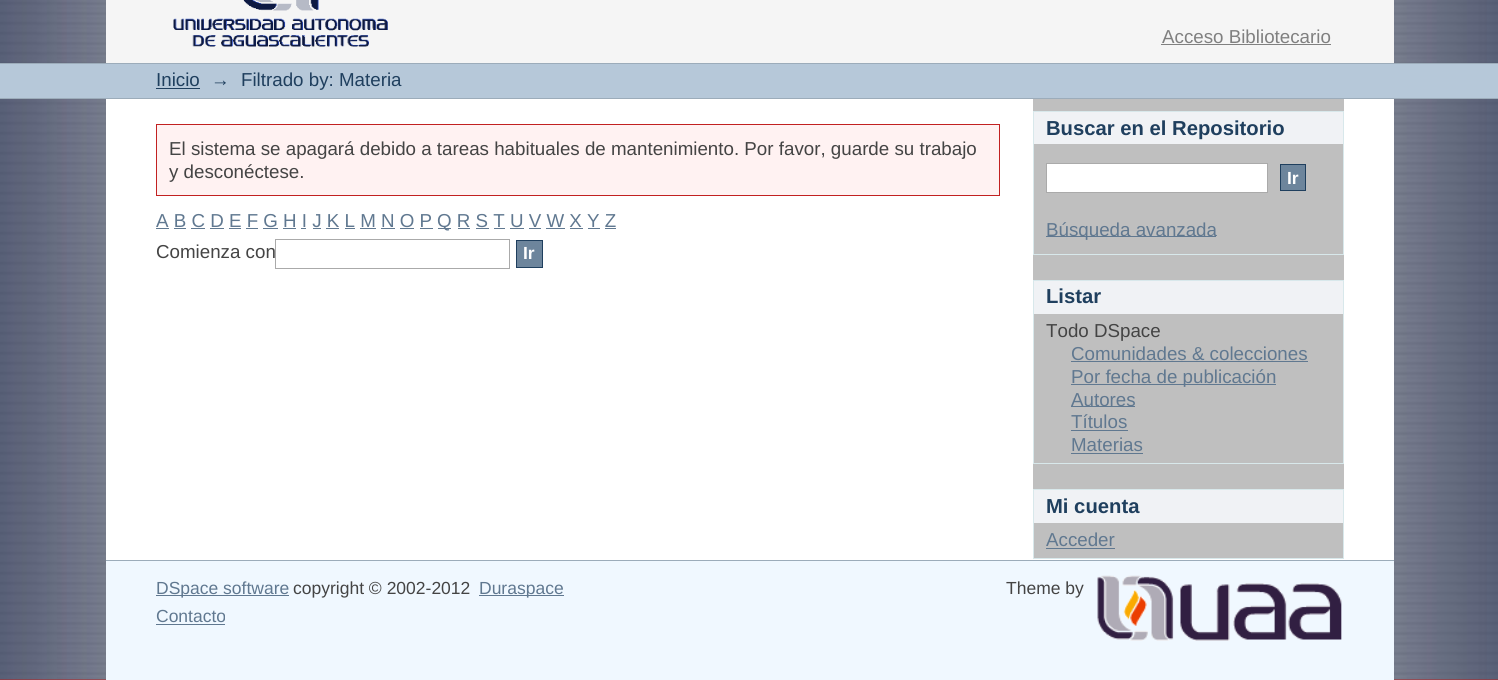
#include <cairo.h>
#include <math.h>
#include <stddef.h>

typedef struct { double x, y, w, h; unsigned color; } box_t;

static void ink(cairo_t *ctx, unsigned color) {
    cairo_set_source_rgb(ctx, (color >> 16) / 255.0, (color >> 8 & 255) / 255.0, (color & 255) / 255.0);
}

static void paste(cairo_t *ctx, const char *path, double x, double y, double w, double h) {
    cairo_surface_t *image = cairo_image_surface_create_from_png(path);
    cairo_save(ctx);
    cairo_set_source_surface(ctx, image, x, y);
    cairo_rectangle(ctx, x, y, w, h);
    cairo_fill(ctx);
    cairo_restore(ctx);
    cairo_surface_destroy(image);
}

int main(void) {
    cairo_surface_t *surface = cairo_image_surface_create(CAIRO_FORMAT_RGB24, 1498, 680);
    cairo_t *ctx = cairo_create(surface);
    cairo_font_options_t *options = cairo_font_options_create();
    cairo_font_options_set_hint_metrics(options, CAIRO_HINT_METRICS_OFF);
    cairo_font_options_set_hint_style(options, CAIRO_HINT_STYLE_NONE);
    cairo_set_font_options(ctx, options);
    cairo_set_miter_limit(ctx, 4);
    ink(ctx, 0xB22222);
    cairo_paint(ctx);
    paste(ctx, "media/1.png", 0, 0, 1498, 680);
    ink(ctx, 0xF5F5F5);
    cairo_rectangle(ctx, 106, 0, 1288, 63);
    cairo_fill(ctx);
    paste(ctx, "media/2.png", 173, 0, 215, 47);
    cairo_select_font_face(ctx, "Liberation Sans", CAIRO_FONT_SLANT_NORMAL, CAIRO_FONT_WEIGHT_NORMAL);
    cairo_set_font_size(ctx, 18.75);
    ink(ctx, 0x808080);
    cairo_move_to(ctx, 1162, 43);
    cairo_show_text(ctx, "Acceso Bibliotecario");
    {
        static const box_t items[] = {
            {1161, 44, 170, 1, 0x808080},
            {0, 64, 1498, 34, 0xB6C8D9},
            {0, 63, 1498, 1, 0x9CACBA},
            {0, 98, 1498, 1, 0x9CACBA},
        };
        for (size_t i = 0; i < sizeof items / sizeof *items; i++) {
            ink(ctx, items[i].color);
            cairo_rectangle(ctx, items[i].x, items[i].y, items[i].w, items[i].h);
            cairo_fill(ctx);
        }
    }
    ink(ctx, 0x1F3F5E);
    cairo_move_to(ctx, 156, 86);
    cairo_show_text(ctx, "Inicio");
    cairo_rectangle(ctx, 156, 88, 44, 1);
    cairo_fill(ctx);
    cairo_move_to(ctx, 211, 86);
    cairo_show_text(ctx, "→");
    cairo_move_to(ctx, 241, 86);
    cairo_show_text(ctx, "Filtrado by: Materia");
    ink(ctx, 0xFFFFFF);
    cairo_rectangle(ctx, 106, 99, 1288, 461);
    cairo_fill(ctx);
    ink(ctx, 0xFFF2F2);
    cairo_rectangle(ctx, 156.5, 124.5, 843, 71);
    cairo_fill_preserve(ctx);
    ink(ctx, 0xC22121);
    cairo_set_line_width(ctx, 1);
    cairo_stroke(ctx);
    ink(ctx, 0x444444);
    cairo_move_to(ctx, 169, 155);
    cairo_show_text(ctx, "El sistema se apagará debido a tareas habituales de mantenimiento. Por favor, guarde su trabajo");
    cairo_move_to(ctx, 169, 178);
    cairo_show_text(ctx, "y desconéctese.");
    ink(ctx, 0x607890);
    cairo_move_to(ctx, 156, 227);
    cairo_show_text(ctx, "A B C D E F G H I J K L M N O P");
    cairo_rectangle(ctx, 156, 228, 13, 1);
    cairo_fill(ctx);
    cairo_rectangle(ctx, 438, 228, 13, 1);
    cairo_fill(ctx);
    cairo_move_to(ctx, 437, 227);
    cairo_show_text(ctx, "Q R S T U V W X Y Z");
    {
        static const box_t items[] = {
            {174, 228, 12, 1, 0x607890},
            {191, 228, 14, 1, 0x607890},
            {210, 228, 14, 1, 0x607890},
            {229, 228, 12, 1, 0x607890},
            {246, 228, 12, 1, 0x607890},
            {263, 228, 15, 1, 0x607890},
            {283, 228, 13, 1, 0x607890},
            {301, 228, 5, 1, 0x607890},
            {313, 228, 8, 1, 0x607890},
            {326, 228, 13, 1, 0x607890},
            {345, 228, 10, 1, 0x607890},
            {360, 228, 16, 1, 0x607890},
            {381, 228, 14, 1, 0x607890},
            {400, 228, 14, 1, 0x607890},
            {420, 228, 13, 1, 0x607890},
            {458, 228, 12, 1, 0x607890},
            {476, 228, 13, 1, 0x607890},
            {494, 228, 11, 1, 0x607890},
            {510, 228, 14, 1, 0x607890},
            {529, 228, 12, 1, 0x607890},
            {546, 228, 19, 1, 0x607890},
            {570, 228, 13, 1, 0x607890},
            {588, 228, 12, 1, 0x607890},
            {605, 228, 11, 1, 0x607890},
        };
        for (size_t i = 0; i < sizeof items / sizeof *items; i++) {
            ink(ctx, items[i].color);
            cairo_rectangle(ctx, items[i].x, items[i].y, items[i].w, items[i].h);
            cairo_fill(ctx);
        }
    }
    ink(ctx, 0x444444);
    cairo_move_to(ctx, 156, 258);
    cairo_show_text(ctx, "Comienza con");
    cairo_rectangle(ctx, 275.5, 239.5, 234, 29);
    ink(ctx, 0xAAAAAA);
    cairo_stroke(ctx);
    ink(ctx, 0x6D859C);
    cairo_rectangle(ctx, 516.5, 240.5, 26, 27);
    cairo_fill_preserve(ctx);
    ink(ctx, 0x1F3F5E);
    cairo_stroke(ctx);
    cairo_select_font_face(ctx, "Liberation Sans", CAIRO_FONT_SLANT_NORMAL, CAIRO_FONT_WEIGHT_BOLD);
    cairo_set_font_size(ctx, 17.5);
    ink(ctx, 0xFFFFFF);
    cairo_move_to(ctx, 523, 259);
    cairo_show_text(ctx, "Ir");
    {
        static const box_t items[] = {
            {1033, 99, 311, 459, 0xBFBFBF},
            {1034, 112, 309, 32, 0xF0F2F5},
            {1033, 111, 311, 1, 0xD8E8EB},
            {1343, 111, 1, 144, 0xD8E8EB},
            {1033, 111, 1, 33, 0xD8E8EB},
        };
        for (size_t i = 0; i < sizeof items / sizeof *items; i++) {
            ink(ctx, items[i].color);
            cairo_rectangle(ctx, items[i].x, items[i].y, items[i].w, items[i].h);
            cairo_fill(ctx);
        }
    }
    cairo_set_font_size(ctx, 20.25);
    ink(ctx, 0x1F3F5E);
    cairo_move_to(ctx, 1046, 135);
    cairo_show_text(ctx, "Buscar en el Repositorio");
    ink(ctx, 0xD8E8EB);
    cairo_rectangle(ctx, 1033, 254, 311, 1);
    cairo_fill(ctx);
    cairo_rectangle(ctx, 1033, 144, 1, 111);
    cairo_fill(ctx);
    ink(ctx, 0xFFFFFF);
    cairo_rectangle(ctx, 1046.5, 163.5, 221, 29);
    cairo_fill_preserve(ctx);
    ink(ctx, 0xAAAAAA);
    cairo_stroke(ctx);
    ink(ctx, 0x6D859C);
    cairo_rectangle(ctx, 1280.5, 164.5, 25, 26);
    cairo_fill_preserve(ctx);
    ink(ctx, 0x1F3F5E);
    cairo_stroke(ctx);
    cairo_set_font_size(ctx, 17.5);
    ink(ctx, 0xFFFFFF);
    cairo_move_to(ctx, 1287, 184);
    cairo_show_text(ctx, "Ir");
    ink(ctx, 0x607890);
    cairo_rectangle(ctx, 1046, 236, 170, 1);
    cairo_fill(ctx);
    cairo_select_font_face(ctx, "Liberation Sans", CAIRO_FONT_SLANT_NORMAL, CAIRO_FONT_WEIGHT_NORMAL);
    cairo_set_font_size(ctx, 18.75);
    cairo_move_to(ctx, 1046, 236);
    cairo_show_text(ctx, "Búsqueda avanzada");
    {
        static const box_t items[] = {
            {1034, 281, 309, 33, 0xF0F2F5},
            {1033, 280, 311, 1, 0xD8E8EB},
            {1343, 280, 1, 184, 0xD8E8EB},
            {1033, 280, 1, 34, 0xD8E8EB},
        };
        for (size_t i = 0; i < sizeof items / sizeof *items; i++) {
            ink(ctx, items[i].color);
            cairo_rectangle(ctx, items[i].x, items[i].y, items[i].w, items[i].h);
            cairo_fill(ctx);
        }
    }
    cairo_select_font_face(ctx, "Liberation Sans", CAIRO_FONT_SLANT_NORMAL, CAIRO_FONT_WEIGHT_BOLD);
    cairo_set_font_size(ctx, 20.25);
    ink(ctx, 0x1F3F5E);
    cairo_move_to(ctx, 1046, 303);
    cairo_show_text(ctx, "Listar");
    ink(ctx, 0xD8E8EB);
    cairo_rectangle(ctx, 1033, 463, 311, 1);
    cairo_fill(ctx);
    cairo_rectangle(ctx, 1033, 314, 1, 150);
    cairo_fill(ctx);
    cairo_select_font_face(ctx, "Liberation Sans", CAIRO_FONT_SLANT_NORMAL, CAIRO_FONT_WEIGHT_NORMAL);
    cairo_set_font_size(ctx, 18.75);
    ink(ctx, 0x444444);
    cairo_move_to(ctx, 1046, 337);
    cairo_show_text(ctx, "Todo DSpace");
    ink(ctx, 0x607890);
    cairo_move_to(ctx, 1071, 360);
    cairo_show_text(ctx, "Comunidades & colecciones");
    cairo_rectangle(ctx, 1071, 361, 237, 1);
    cairo_fill(ctx);
    cairo_rectangle(ctx, 1071, 384, 205, 1);
    cairo_fill(ctx);
    cairo_move_to(ctx, 1071, 383);
    cairo_show_text(ctx, "Por fecha de publicación");
    cairo_rectangle(ctx, 1071, 406, 64, 1);
    cairo_fill(ctx);
    cairo_move_to(ctx, 1071, 406);
    cairo_show_text(ctx, "Autores");
    cairo_move_to(ctx, 1071, 428);
    cairo_show_text(ctx, "Títulos");
    cairo_rectangle(ctx, 1071, 430, 57, 1);
    cairo_fill(ctx);
    cairo_move_to(ctx, 1071, 451);
    cairo_show_text(ctx, "Materias");
    {
        static const box_t items[] = {
            {1071, 453, 72, 1, 0x607890},
            {1034, 490, 309, 33, 0xF0F2F5},
            {1033, 489, 311, 1, 0xD8E8EB},
            {1343, 489, 1, 70, 0xD8E8EB},
            {1033, 489, 1, 34, 0xD8E8EB},
        };
        for (size_t i = 0; i < sizeof items / sizeof *items; i++) {
            ink(ctx, items[i].color);
            cairo_rectangle(ctx, items[i].x, items[i].y, items[i].w, items[i].h);
            cairo_fill(ctx);
        }
    }
    cairo_select_font_face(ctx, "Liberation Sans", CAIRO_FONT_SLANT_NORMAL, CAIRO_FONT_WEIGHT_BOLD);
    cairo_set_font_size(ctx, 20.25);
    ink(ctx, 0x1F3F5E);
    cairo_move_to(ctx, 1046, 513);
    cairo_show_text(ctx, "Mi cuenta");
    ink(ctx, 0xD8E8EB);
    cairo_rectangle(ctx, 1033, 558, 311, 1);
    cairo_fill(ctx);
    cairo_rectangle(ctx, 1033, 523, 1, 36);
    cairo_fill(ctx);
    cairo_select_font_face(ctx, "Liberation Sans", CAIRO_FONT_SLANT_NORMAL, CAIRO_FONT_WEIGHT_NORMAL);
    cairo_set_font_size(ctx, 18.75);
    ink(ctx, 0x607890);
    cairo_move_to(ctx, 1046, 546);
    cairo_show_text(ctx, "Acceder");
    {
        static const box_t items[] = {
            {1046, 548, 69, 1, 0x607890},
            {106, 561, 1288, 119, 0xF0F8FF},
            {106, 560, 1288, 1, 0x9CACBA},
            {156, 595, 133, 1, 0x607890},
        };
        for (size_t i = 0; i < sizeof items / sizeof *items; i++) {
            ink(ctx, items[i].color);
            cairo_rectangle(ctx, items[i].x, items[i].y, items[i].w, items[i].h);
            cairo_fill(ctx);
        }
    }
    cairo_set_font_size(ctx, 17.5);
    cairo_move_to(ctx, 156, 594);
    cairo_show_text(ctx, "DSpace software");
    ink(ctx, 0x444444);
    cairo_move_to(ctx, 293, 594);
    cairo_show_text(ctx, "copyright © 2002-2012");
    ink(ctx, 0x607890);
    cairo_rectangle(ctx, 479, 595, 85, 1);
    cairo_fill(ctx);
    cairo_move_to(ctx, 479, 594);
    cairo_show_text(ctx, "Duraspace");
    ink(ctx, 0x444444);
    cairo_move_to(ctx, 1006, 594);
    cairo_show_text(ctx, "Theme by");
    paste(ctx, "media/3.png", 1097, 575, 245, 66);
    ink(ctx, 0x607890);
    cairo_move_to(ctx, 156, 622);
    cairo_show_text(ctx, "Contacto");
    cairo_rectangle(ctx, 156, 624, 69, 1);
    cairo_fill(ctx);
    cairo_surface_write_to_png(surface, "image.png");
    cairo_font_options_destroy(options);
    cairo_destroy(ctx);
    cairo_surface_destroy(surface);
    return 0;
}
